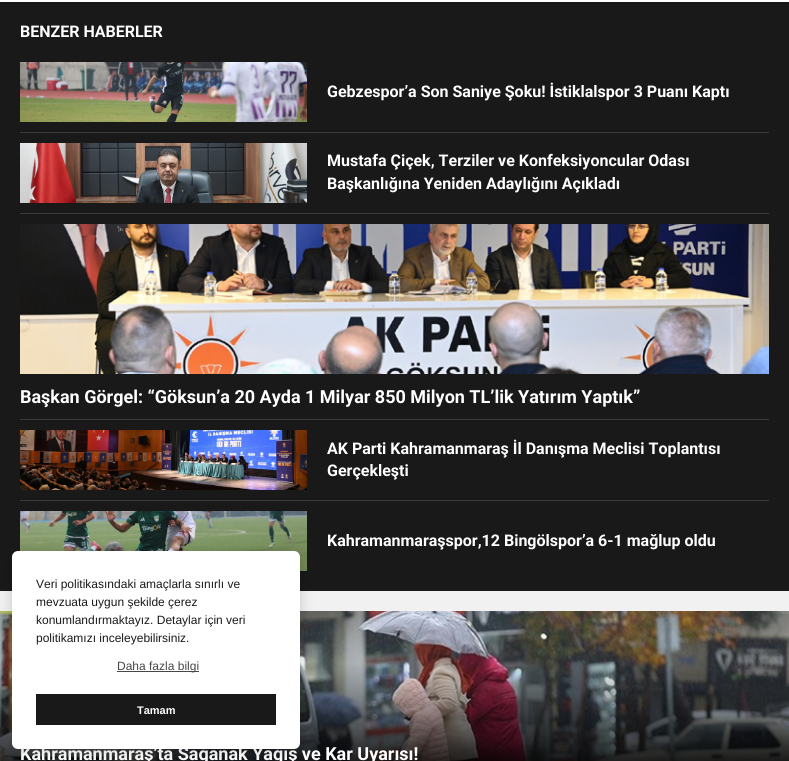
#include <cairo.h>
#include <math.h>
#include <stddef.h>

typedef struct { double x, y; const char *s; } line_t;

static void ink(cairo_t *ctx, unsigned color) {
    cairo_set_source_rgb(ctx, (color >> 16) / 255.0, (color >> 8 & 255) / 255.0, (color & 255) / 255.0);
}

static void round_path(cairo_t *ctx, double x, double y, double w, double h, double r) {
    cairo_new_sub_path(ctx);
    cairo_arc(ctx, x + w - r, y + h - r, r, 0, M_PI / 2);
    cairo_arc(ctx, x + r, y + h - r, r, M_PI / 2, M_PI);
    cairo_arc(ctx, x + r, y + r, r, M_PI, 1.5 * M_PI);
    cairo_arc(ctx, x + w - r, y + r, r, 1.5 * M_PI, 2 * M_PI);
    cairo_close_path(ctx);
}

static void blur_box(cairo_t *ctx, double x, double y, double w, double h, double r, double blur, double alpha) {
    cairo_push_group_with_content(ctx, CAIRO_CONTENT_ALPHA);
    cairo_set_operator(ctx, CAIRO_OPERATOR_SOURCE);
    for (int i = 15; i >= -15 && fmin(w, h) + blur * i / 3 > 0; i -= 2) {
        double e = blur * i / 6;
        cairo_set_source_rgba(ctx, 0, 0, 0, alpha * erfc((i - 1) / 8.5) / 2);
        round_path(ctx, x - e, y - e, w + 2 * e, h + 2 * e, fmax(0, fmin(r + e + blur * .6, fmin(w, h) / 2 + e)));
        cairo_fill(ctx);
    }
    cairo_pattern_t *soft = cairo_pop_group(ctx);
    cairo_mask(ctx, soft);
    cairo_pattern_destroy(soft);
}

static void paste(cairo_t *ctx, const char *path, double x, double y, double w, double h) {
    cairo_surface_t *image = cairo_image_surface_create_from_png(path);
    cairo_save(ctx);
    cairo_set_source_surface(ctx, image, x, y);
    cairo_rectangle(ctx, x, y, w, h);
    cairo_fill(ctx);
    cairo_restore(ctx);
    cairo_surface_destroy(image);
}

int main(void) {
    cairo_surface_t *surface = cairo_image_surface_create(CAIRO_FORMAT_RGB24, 789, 761);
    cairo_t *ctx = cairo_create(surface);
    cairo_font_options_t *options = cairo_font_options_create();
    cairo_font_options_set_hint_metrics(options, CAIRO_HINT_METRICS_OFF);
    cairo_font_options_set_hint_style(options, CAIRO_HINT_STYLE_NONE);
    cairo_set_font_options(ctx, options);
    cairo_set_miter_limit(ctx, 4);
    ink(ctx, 0xF1F1F1);
    cairo_paint(ctx);
    ink(ctx, 0xFFFFFF);
    cairo_rectangle(ctx, 0, 0, 789, 2);
    cairo_fill(ctx);
    ink(ctx, 0x191919);
    cairo_rectangle(ctx, 0, 2, 789, 589);
    cairo_fill(ctx);
    cairo_select_font_face(ctx, "Roboto", CAIRO_FONT_SLANT_NORMAL, CAIRO_FONT_WEIGHT_BOLD);
    cairo_set_font_size(ctx, 16);
    ink(ctx, 0xFFFFFF);
    cairo_move_to(ctx, 20, 37);
    cairo_show_text(ctx, "BENZER HABERLER");
    ink(ctx, 0x3A3A3A);
    cairo_rectangle(ctx, 20, 132, 749, 1);
    cairo_fill(ctx);
    paste(ctx, "media/1.png", 20, 62, 287, 60);
    ink(ctx, 0xFFFFFF);
    cairo_move_to(ctx, 327, 97);
    cairo_show_text(ctx, "Gebzespor’a Son Saniye Şoku! İstiklalspor 3 Puanı Kaptı");
    ink(ctx, 0x3A3A3A);
    cairo_rectangle(ctx, 20, 213, 749, 1);
    cairo_fill(ctx);
    paste(ctx, "media/2.png", 20, 143, 287, 60);
    ink(ctx, 0xFFFFFF);
    cairo_move_to(ctx, 327, 166);
    cairo_show_text(ctx, "Mustafa Çiçek, Terziler ve Konfeksiyoncular Odası");
    cairo_move_to(ctx, 327, 189);
    cairo_show_text(ctx, "Başkanlığına Yeniden Adaylığını Açıkladı");
    ink(ctx, 0x3A3A3A);
    cairo_rectangle(ctx, 20, 419, 749, 1);
    cairo_fill(ctx);
    paste(ctx, "media/3.png", 20, 224, 749, 150);
    cairo_set_font_size(ctx, 18);
    ink(ctx, 0xFFFFFF);
    cairo_move_to(ctx, 20, 403);
    cairo_show_text(ctx, "Başkan Görgel: “Göksun’a 20 Ayda 1 Milyar 850 Milyon TL’lik Yatırım Yaptık”");
    ink(ctx, 0x3A3A3A);
    cairo_rectangle(ctx, 20, 500, 749, 1);
    cairo_fill(ctx);
    paste(ctx, "media/4.png", 20, 430, 287, 60);
    cairo_set_font_size(ctx, 16);
    ink(ctx, 0xFFFFFF);
    cairo_move_to(ctx, 327, 454);
    cairo_show_text(ctx, "AK Parti Kahramanmaraş İl Danışma Meclisi Toplantısı");
    cairo_move_to(ctx, 327, 476);
    cairo_show_text(ctx, "Gerçekleşti");
    paste(ctx, "media/5.png", 20, 511, 287, 60);
    cairo_move_to(ctx, 327, 546);
    cairo_show_text(ctx, "Kahramanmaraşspor,12 Bingölspor’a 6-1 mağlup oldu");
    paste(ctx, "media/6.png", 0, 611, 789, 150);
    cairo_set_font_size(ctx, 18);
    cairo_move_to(ctx, 20, 760);
    cairo_show_text(ctx, "Kahramanmaraş’ta Sağanak Yağış ve Kar Uyarısı!");
    ink(ctx, 0x000000);
    blur_box(ctx, 12, 553, 288, 198, 6, 6.5, 0.19);
    ink(ctx, 0xFFFFFF);
    round_path(ctx, 12, 551, 288, 198, 6);
    cairo_fill(ctx);
    cairo_select_font_face(ctx, "Liberation Sans", CAIRO_FONT_SLANT_NORMAL, CAIRO_FONT_WEIGHT_NORMAL);
    cairo_set_font_size(ctx, 12);
    ink(ctx, 0x191919);
    {
        static const line_t items[] = {
            {36, 588, "Veri politikasındaki amaçlarla sınırlı ve"},
            {36, 606, "mevzuata uygun şekilde çerez"},
            {36, 624, "konumlandırmaktayız. Detaylar için veri"},
            {36, 642, "politikamızı inceleyebilirsiniz."},
        };
        for (size_t i = 0; i < sizeof items / sizeof *items; i++) {
            cairo_move_to(ctx, items[i].x, items[i].y);
            cairo_show_text(ctx, items[i].s);
        }
    }
    ink(ctx, 0x474747);
    cairo_rectangle(ctx, 117, 671, 82, 1);
    cairo_fill(ctx);
    cairo_move_to(ctx, 117, 670);
    cairo_show_text(ctx, "Daha fazla bilgi");
    ink(ctx, 0x191919);
    cairo_rectangle(ctx, 36, 694, 240, 31);
    cairo_fill(ctx);
    cairo_select_font_face(ctx, "Liberation Sans", CAIRO_FONT_SLANT_NORMAL, CAIRO_FONT_WEIGHT_BOLD);
    cairo_set_font_size(ctx, 11);
    ink(ctx, 0xFFFFFF);
    cairo_move_to(ctx, 137, 714);
    cairo_show_text(ctx, "Tamam");
    cairo_surface_write_to_png(surface, "image.png");
    cairo_font_options_destroy(options);
    cairo_destroy(ctx);
    cairo_surface_destroy(surface);
    return 0;
}
